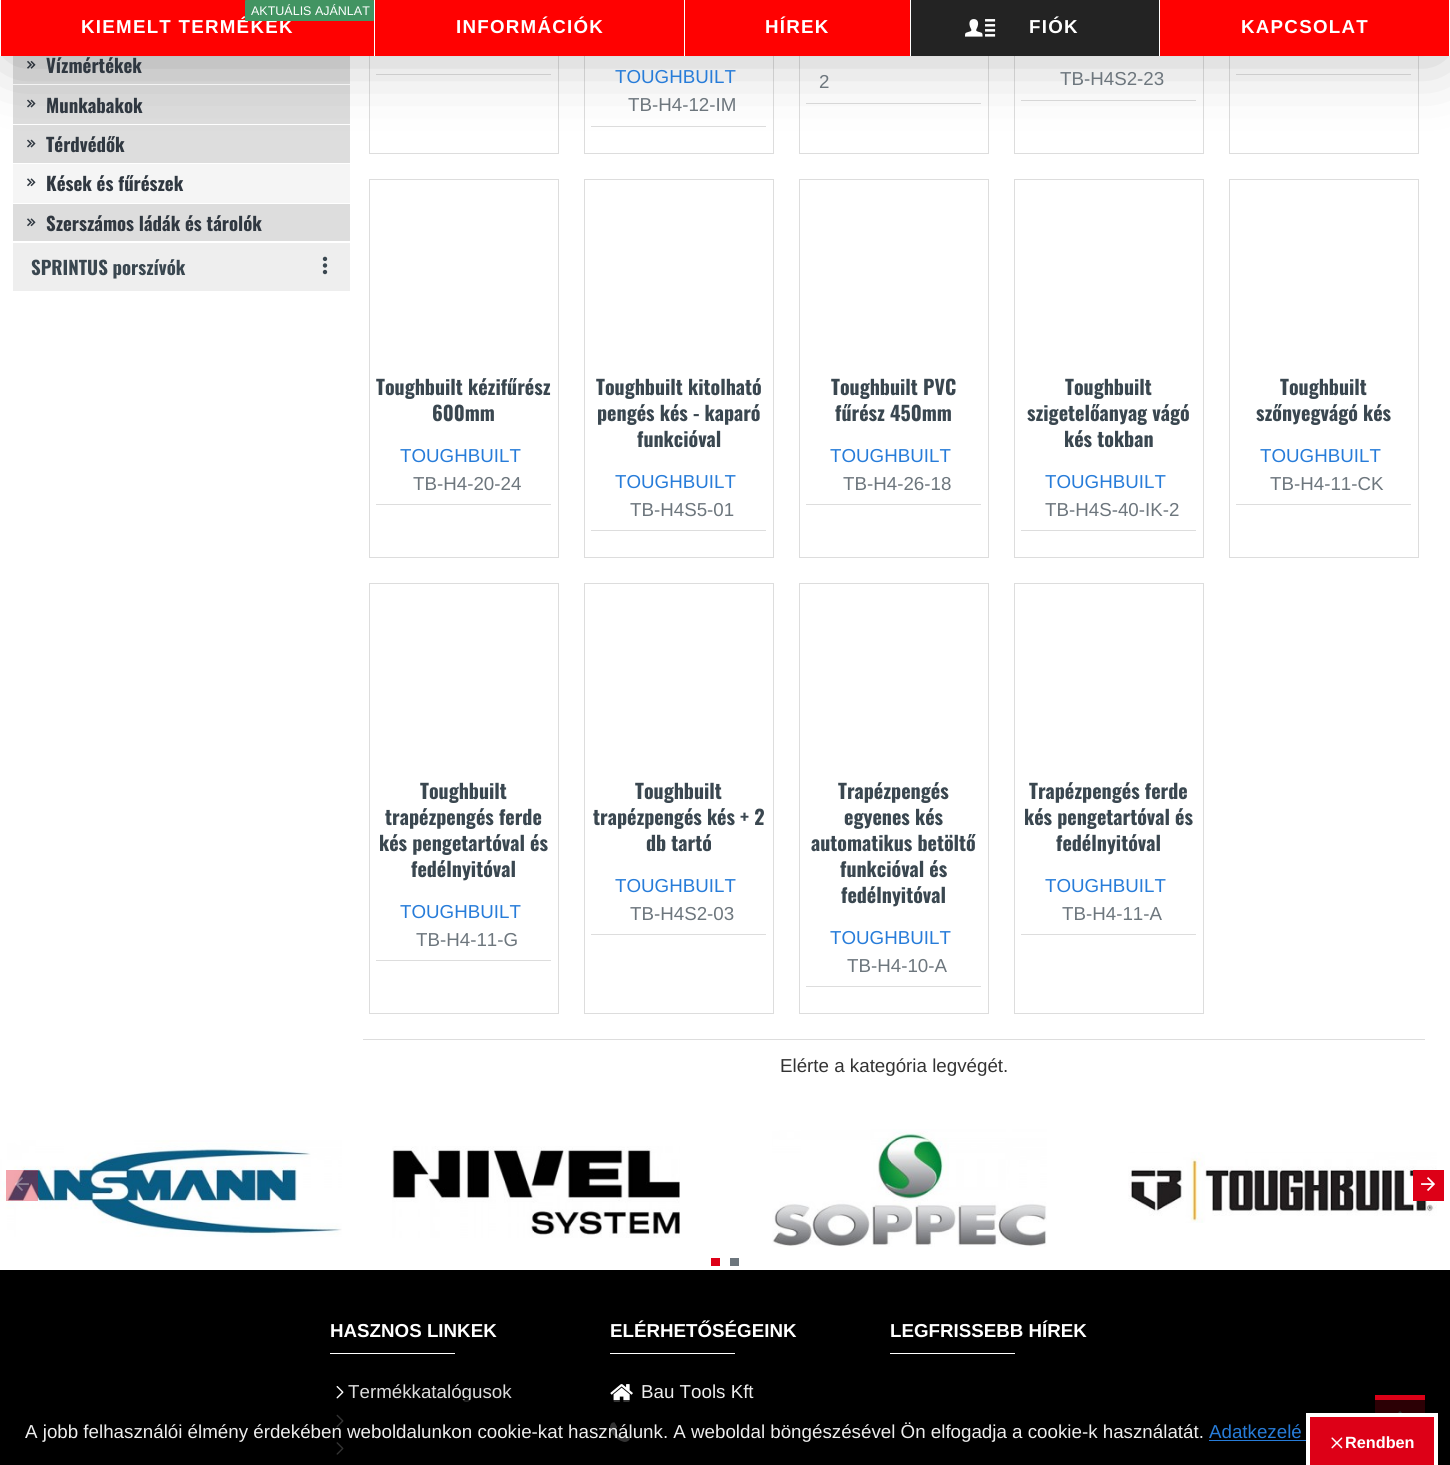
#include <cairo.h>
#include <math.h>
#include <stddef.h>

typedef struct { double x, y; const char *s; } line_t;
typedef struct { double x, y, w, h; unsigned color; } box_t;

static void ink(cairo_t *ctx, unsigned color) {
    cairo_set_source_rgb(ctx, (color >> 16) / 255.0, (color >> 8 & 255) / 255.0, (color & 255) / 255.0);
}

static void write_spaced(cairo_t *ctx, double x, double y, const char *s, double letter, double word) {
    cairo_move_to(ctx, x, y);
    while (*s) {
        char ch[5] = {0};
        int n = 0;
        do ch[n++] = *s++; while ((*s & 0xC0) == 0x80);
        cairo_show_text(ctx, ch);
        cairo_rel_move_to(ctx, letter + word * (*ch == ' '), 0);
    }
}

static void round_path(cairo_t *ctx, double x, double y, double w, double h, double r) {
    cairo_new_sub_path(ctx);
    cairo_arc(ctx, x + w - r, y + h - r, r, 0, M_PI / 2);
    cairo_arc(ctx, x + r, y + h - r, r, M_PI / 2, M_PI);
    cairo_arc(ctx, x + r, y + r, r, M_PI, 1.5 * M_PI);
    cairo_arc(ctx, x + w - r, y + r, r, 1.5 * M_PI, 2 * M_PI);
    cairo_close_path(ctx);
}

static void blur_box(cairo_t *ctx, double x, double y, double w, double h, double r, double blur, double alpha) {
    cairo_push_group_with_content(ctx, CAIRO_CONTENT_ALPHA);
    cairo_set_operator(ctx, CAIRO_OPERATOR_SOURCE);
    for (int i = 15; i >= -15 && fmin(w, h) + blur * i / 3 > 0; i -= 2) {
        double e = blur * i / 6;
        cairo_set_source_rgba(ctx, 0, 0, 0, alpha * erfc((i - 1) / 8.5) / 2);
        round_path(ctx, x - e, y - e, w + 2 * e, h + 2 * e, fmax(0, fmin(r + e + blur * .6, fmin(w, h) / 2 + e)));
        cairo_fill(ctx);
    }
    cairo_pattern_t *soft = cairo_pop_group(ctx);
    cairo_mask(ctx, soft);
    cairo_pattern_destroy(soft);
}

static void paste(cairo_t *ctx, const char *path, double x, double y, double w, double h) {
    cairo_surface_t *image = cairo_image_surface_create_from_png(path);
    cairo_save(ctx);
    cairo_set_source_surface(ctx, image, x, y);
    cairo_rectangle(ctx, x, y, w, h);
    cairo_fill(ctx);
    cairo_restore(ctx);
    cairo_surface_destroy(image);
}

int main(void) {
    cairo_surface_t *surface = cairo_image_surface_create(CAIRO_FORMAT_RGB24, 1450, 1465);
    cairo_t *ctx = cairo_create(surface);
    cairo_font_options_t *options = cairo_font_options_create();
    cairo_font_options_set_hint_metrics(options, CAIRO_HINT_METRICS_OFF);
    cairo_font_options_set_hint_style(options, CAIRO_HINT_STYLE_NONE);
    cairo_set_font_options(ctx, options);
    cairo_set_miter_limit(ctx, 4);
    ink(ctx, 0xFFFFFF);
    cairo_paint(ctx);
    ink(ctx, 0xDDDDDD);
    cairo_rectangle(ctx, 13, 56, 337, 28);
    cairo_fill(ctx);
    paste(ctx, "media/2.png", 27, 60, 9, 9);
    cairo_rectangle(ctx, 13, 85, 337, 39);
    cairo_fill(ctx);
    paste(ctx, "media/3.png", 27, 99, 9, 9);
    cairo_rectangle(ctx, 13, 125, 337, 38);
    cairo_fill(ctx);
    paste(ctx, "media/3.png", 27, 139, 9, 9);
    cairo_rectangle(ctx, 369.5, -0.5, 189, 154);
    cairo_set_line_width(ctx, 1);
    cairo_stroke(ctx);
    cairo_rectangle(ctx, 376, 74, 175, 1);
    cairo_fill(ctx);
    cairo_rectangle(ctx, 584.5, -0.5, 189, 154);
    cairo_stroke(ctx);
    cairo_rectangle(ctx, 591, 126, 175, 1);
    cairo_fill(ctx);
    cairo_rectangle(ctx, 799.5, -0.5, 189, 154);
    cairo_stroke(ctx);
    cairo_rectangle(ctx, 806, 103, 175, 1);
    cairo_fill(ctx);
    cairo_rectangle(ctx, 1014.5, -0.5, 189, 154);
    cairo_stroke(ctx);
    cairo_rectangle(ctx, 1021, 100, 175, 1);
    cairo_fill(ctx);
    cairo_rectangle(ctx, 1229.5, -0.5, 189, 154);
    cairo_stroke(ctx);
    cairo_rectangle(ctx, 1236, 74, 175, 1);
    cairo_fill(ctx);
    ink(ctx, 0x000000);
    blur_box(ctx, 13, 19, 1425, 31, 0, 37.5, 0.3);
    {
        static const box_t items[] = {
            {1, 0, 1448, 56, 0xFF0101},
            {1449, 0, 1, 56, 0xFFFFFF},
            {0, 0, 1, 56, 0xFFFFFF},
        };
        for (size_t i = 0; i < sizeof items / sizeof *items; i++) {
            ink(ctx, items[i].color);
            cairo_rectangle(ctx, items[i].x, items[i].y, items[i].w, items[i].h);
            cairo_fill(ctx);
        }
    }
    cairo_select_font_face(ctx, "Liberation Sans", CAIRO_FONT_SLANT_NORMAL, CAIRO_FONT_WEIGHT_BOLD);
    cairo_set_font_size(ctx, 18.75);
    write_spaced(ctx, 81, 33, "KIEMELT TERMÉKEK", 1.25, 0);
    ink(ctx, 0x429462);
    round_path(ctx, 245, 0, 129, 21, 1);
    cairo_fill(ctx);
    cairo_select_font_face(ctx, "Liberation Sans", CAIRO_FONT_SLANT_NORMAL, CAIRO_FONT_WEIGHT_NORMAL);
    cairo_set_font_size(ctx, 12.5);
    ink(ctx, 0xFFFFFF);
    cairo_move_to(ctx, 251, 15);
    cairo_show_text(ctx, "AKTUÁLIS AJÁNLAT");
    cairo_rectangle(ctx, 374, 0, 1, 56);
    cairo_fill(ctx);
    cairo_select_font_face(ctx, "Liberation Sans", CAIRO_FONT_SLANT_NORMAL, CAIRO_FONT_WEIGHT_BOLD);
    cairo_set_font_size(ctx, 18.75);
    write_spaced(ctx, 456, 33, "INFORMÁCIÓK", 1.25, 0);
    cairo_rectangle(ctx, 684, 0, 1, 56);
    cairo_fill(ctx);
    write_spaced(ctx, 765, 33, "HÍREK", 1.25, 0);
    ink(ctx, 0x232323);
    cairo_rectangle(ctx, 911, 0, 248, 56);
    cairo_fill(ctx);
    ink(ctx, 0xFFFFFF);
    cairo_rectangle(ctx, 910, 0, 1, 56);
    cairo_fill(ctx);
    paste(ctx, "media/1.png", 965, 19, 31, 18);
    write_spaced(ctx, 1029, 33, "FIÓK", 1.25, 0);
    cairo_rectangle(ctx, 1159, 0, 1, 56);
    cairo_fill(ctx);
    write_spaced(ctx, 1241, 33, "KAPCSOLAT", 1.25, 0);
    cairo_select_font_face(ctx, "Oswald", CAIRO_FONT_SLANT_NORMAL, CAIRO_FONT_WEIGHT_BOLD);
    ink(ctx, 0x303841);
    {
        static const line_t items[] = {
            {46, 73, "Vízmértékek"},
            {46, 113, "Munkabakok"},
            {46, 152, "Térdvédők"},
        };
        for (size_t i = 0; i < sizeof items / sizeof *items; i++) {
            cairo_move_to(ctx, items[i].x, items[i].y);
            cairo_show_text(ctx, items[i].s);
        }
    }
    ink(ctx, 0xF5F5F5);
    cairo_rectangle(ctx, 13, 164, 337, 39);
    cairo_fill(ctx);
    paste(ctx, "media/4.png", 27, 178, 9, 9);
    ink(ctx, 0x303841);
    cairo_move_to(ctx, 46, 191);
    cairo_show_text(ctx, "Kések és fűrészek");
    ink(ctx, 0xDDDDDD);
    cairo_rectangle(ctx, 13, 204, 337, 37);
    cairo_fill(ctx);
    paste(ctx, "media/5.png", 27, 218, 9, 9);
    ink(ctx, 0x303841);
    cairo_move_to(ctx, 46, 231);
    cairo_show_text(ctx, "Szerszámos ládák és tárolók");
    ink(ctx, 0xEEEEEE);
    cairo_rectangle(ctx, 13, 243, 337, 48);
    cairo_fill(ctx);
    ink(ctx, 0x3A4750);
    cairo_move_to(ctx, 31, 275);
    cairo_show_text(ctx, "SPRINTUS porszívók");
    paste(ctx, "media/6.png", 322, 256, 6, 19);
    cairo_select_font_face(ctx, "Liberation Sans", CAIRO_FONT_SLANT_NORMAL, CAIRO_FONT_WEIGHT_NORMAL);
    ink(ctx, 0x277CD9);
    cairo_move_to(ctx, 615, 83);
    cairo_show_text(ctx, "TOUGHBUILT");
    ink(ctx, 0x6D767D);
    {
        static const line_t items[] = {
            {628, 111, "TB-H4-12-IM"},
            {819, 88, "2"},
            {1060, 85, "TB-H4S2-23"},
        };
        for (size_t i = 0; i < sizeof items / sizeof *items; i++) {
            cairo_move_to(ctx, items[i].x, items[i].y);
            cairo_show_text(ctx, items[i].s);
        }
    }
    cairo_rectangle(ctx, 369.5, 179.5, 189, 378);
    ink(ctx, 0xDDDDDD);
    cairo_stroke(ctx);
    cairo_select_font_face(ctx, "Oswald", CAIRO_FONT_SLANT_NORMAL, CAIRO_FONT_WEIGHT_BOLD);
    cairo_set_font_size(ctx, 20);
    ink(ctx, 0x3A4750);
    cairo_move_to(ctx, 376, 395);
    cairo_show_text(ctx, "Toughbuilt kézifűrész");
    cairo_move_to(ctx, 432, 421);
    cairo_show_text(ctx, "600mm");
    ink(ctx, 0xDDDDDD);
    cairo_rectangle(ctx, 376, 504, 175, 1);
    cairo_fill(ctx);
    cairo_select_font_face(ctx, "Liberation Sans", CAIRO_FONT_SLANT_NORMAL, CAIRO_FONT_WEIGHT_NORMAL);
    cairo_set_font_size(ctx, 18.75);
    ink(ctx, 0x277CD9);
    cairo_move_to(ctx, 400, 462);
    cairo_show_text(ctx, "TOUGHBUILT");
    ink(ctx, 0x6D767D);
    cairo_move_to(ctx, 413, 490);
    cairo_show_text(ctx, "TB-H4-20-24");
    cairo_rectangle(ctx, 584.5, 179.5, 189, 378);
    ink(ctx, 0xDDDDDD);
    cairo_stroke(ctx);
    cairo_select_font_face(ctx, "Oswald", CAIRO_FONT_SLANT_NORMAL, CAIRO_FONT_WEIGHT_BOLD);
    cairo_set_font_size(ctx, 20);
    ink(ctx, 0x3A4750);
    {
        static const line_t items[] = {
            {596, 395, "Toughbuilt kitolható"},
            {597, 421, "pengés kés - kaparó"},
            {637, 447, "funkcióval"},
        };
        for (size_t i = 0; i < sizeof items / sizeof *items; i++) {
            cairo_move_to(ctx, items[i].x, items[i].y);
            cairo_show_text(ctx, items[i].s);
        }
    }
    ink(ctx, 0xDDDDDD);
    cairo_rectangle(ctx, 591, 530, 175, 1);
    cairo_fill(ctx);
    cairo_select_font_face(ctx, "Liberation Sans", CAIRO_FONT_SLANT_NORMAL, CAIRO_FONT_WEIGHT_NORMAL);
    cairo_set_font_size(ctx, 18.75);
    ink(ctx, 0x277CD9);
    cairo_move_to(ctx, 615, 488);
    cairo_show_text(ctx, "TOUGHBUILT");
    ink(ctx, 0x6D767D);
    cairo_move_to(ctx, 630, 516);
    cairo_show_text(ctx, "TB-H4S5-01");
    cairo_rectangle(ctx, 799.5, 179.5, 189, 378);
    ink(ctx, 0xDDDDDD);
    cairo_stroke(ctx);
    cairo_select_font_face(ctx, "Oswald", CAIRO_FONT_SLANT_NORMAL, CAIRO_FONT_WEIGHT_BOLD);
    cairo_set_font_size(ctx, 20);
    ink(ctx, 0x3A4750);
    cairo_move_to(ctx, 831, 395);
    cairo_show_text(ctx, "Toughbuilt PVC");
    cairo_move_to(ctx, 835, 421);
    cairo_show_text(ctx, "fűrész 450mm");
    ink(ctx, 0xDDDDDD);
    cairo_rectangle(ctx, 806, 504, 175, 1);
    cairo_fill(ctx);
    cairo_select_font_face(ctx, "Liberation Sans", CAIRO_FONT_SLANT_NORMAL, CAIRO_FONT_WEIGHT_NORMAL);
    cairo_set_font_size(ctx, 18.75);
    ink(ctx, 0x277CD9);
    cairo_move_to(ctx, 830, 462);
    cairo_show_text(ctx, "TOUGHBUILT");
    ink(ctx, 0x6D767D);
    cairo_move_to(ctx, 843, 490);
    cairo_show_text(ctx, "TB-H4-26-18");
    cairo_rectangle(ctx, 1014.5, 179.5, 189, 378);
    ink(ctx, 0xDDDDDD);
    cairo_stroke(ctx);
    cairo_select_font_face(ctx, "Oswald", CAIRO_FONT_SLANT_NORMAL, CAIRO_FONT_WEIGHT_BOLD);
    cairo_set_font_size(ctx, 20);
    ink(ctx, 0x3A4750);
    {
        static const line_t items[] = {
            {1065, 395, "Toughbuilt"},
            {1027, 421, "szigetelőanyag vágó"},
            {1064, 447, "kés tokban"},
        };
        for (size_t i = 0; i < sizeof items / sizeof *items; i++) {
            cairo_move_to(ctx, items[i].x, items[i].y);
            cairo_show_text(ctx, items[i].s);
        }
    }
    ink(ctx, 0xDDDDDD);
    cairo_rectangle(ctx, 1021, 530, 175, 1);
    cairo_fill(ctx);
    cairo_select_font_face(ctx, "Liberation Sans", CAIRO_FONT_SLANT_NORMAL, CAIRO_FONT_WEIGHT_NORMAL);
    cairo_set_font_size(ctx, 18.75);
    ink(ctx, 0x277CD9);
    cairo_move_to(ctx, 1045, 488);
    cairo_show_text(ctx, "TOUGHBUILT");
    ink(ctx, 0x6D767D);
    cairo_move_to(ctx, 1045, 516);
    cairo_show_text(ctx, "TB-H4S-40-IK-2");
    cairo_rectangle(ctx, 1229.5, 179.5, 189, 378);
    ink(ctx, 0xDDDDDD);
    cairo_stroke(ctx);
    cairo_select_font_face(ctx, "Oswald", CAIRO_FONT_SLANT_NORMAL, CAIRO_FONT_WEIGHT_BOLD);
    cairo_set_font_size(ctx, 20);
    ink(ctx, 0x3A4750);
    cairo_move_to(ctx, 1280, 395);
    cairo_show_text(ctx, "Toughbuilt");
    cairo_move_to(ctx, 1256, 421);
    cairo_show_text(ctx, "szőnyegvágó kés");
    ink(ctx, 0xDDDDDD);
    cairo_rectangle(ctx, 1236, 504, 175, 1);
    cairo_fill(ctx);
    cairo_select_font_face(ctx, "Liberation Sans", CAIRO_FONT_SLANT_NORMAL, CAIRO_FONT_WEIGHT_NORMAL);
    cairo_set_font_size(ctx, 18.75);
    ink(ctx, 0x277CD9);
    cairo_move_to(ctx, 1260, 462);
    cairo_show_text(ctx, "TOUGHBUILT");
    ink(ctx, 0x6D767D);
    cairo_move_to(ctx, 1270, 490);
    cairo_show_text(ctx, "TB-H4-11-CK");
    cairo_rectangle(ctx, 369.5, 583.5, 189, 430);
    ink(ctx, 0xDDDDDD);
    cairo_stroke(ctx);
    cairo_select_font_face(ctx, "Oswald", CAIRO_FONT_SLANT_NORMAL, CAIRO_FONT_WEIGHT_BOLD);
    cairo_set_font_size(ctx, 20);
    ink(ctx, 0x3A4750);
    {
        static const line_t items[] = {
            {420, 799, "Toughbuilt"},
            {385, 825, "trapézpengés ferde"},
            {379, 851, "kés pengetartóval és"},
            {411, 877, "fedélnyitóval"},
        };
        for (size_t i = 0; i < sizeof items / sizeof *items; i++) {
            cairo_move_to(ctx, items[i].x, items[i].y);
            cairo_show_text(ctx, items[i].s);
        }
    }
    ink(ctx, 0xDDDDDD);
    cairo_rectangle(ctx, 376, 960, 175, 1);
    cairo_fill(ctx);
    cairo_select_font_face(ctx, "Liberation Sans", CAIRO_FONT_SLANT_NORMAL, CAIRO_FONT_WEIGHT_NORMAL);
    cairo_set_font_size(ctx, 18.75);
    ink(ctx, 0x277CD9);
    cairo_move_to(ctx, 400, 918);
    cairo_show_text(ctx, "TOUGHBUILT");
    ink(ctx, 0x6D767D);
    cairo_move_to(ctx, 416, 946);
    cairo_show_text(ctx, "TB-H4-11-G");
    cairo_rectangle(ctx, 584.5, 583.5, 189, 430);
    ink(ctx, 0xDDDDDD);
    cairo_stroke(ctx);
    cairo_select_font_face(ctx, "Oswald", CAIRO_FONT_SLANT_NORMAL, CAIRO_FONT_WEIGHT_BOLD);
    cairo_set_font_size(ctx, 20);
    ink(ctx, 0x3A4750);
    {
        static const line_t items[] = {
            {635, 799, "Toughbuilt"},
            {593, 825, "trapézpengés kés + 2"},
            {646, 851, "db tartó"},
        };
        for (size_t i = 0; i < sizeof items / sizeof *items; i++) {
            cairo_move_to(ctx, items[i].x, items[i].y);
            cairo_show_text(ctx, items[i].s);
        }
    }
    ink(ctx, 0xDDDDDD);
    cairo_rectangle(ctx, 591, 934, 175, 1);
    cairo_fill(ctx);
    cairo_select_font_face(ctx, "Liberation Sans", CAIRO_FONT_SLANT_NORMAL, CAIRO_FONT_WEIGHT_NORMAL);
    cairo_set_font_size(ctx, 18.75);
    ink(ctx, 0x277CD9);
    cairo_move_to(ctx, 615, 892);
    cairo_show_text(ctx, "TOUGHBUILT");
    ink(ctx, 0x6D767D);
    cairo_move_to(ctx, 630, 920);
    cairo_show_text(ctx, "TB-H4S2-03");
    cairo_rectangle(ctx, 799.5, 583.5, 189, 430);
    ink(ctx, 0xDDDDDD);
    cairo_stroke(ctx);
    cairo_select_font_face(ctx, "Oswald", CAIRO_FONT_SLANT_NORMAL, CAIRO_FONT_WEIGHT_BOLD);
    cairo_set_font_size(ctx, 20);
    ink(ctx, 0x3A4750);
    {
        static const line_t items[] = {
            {838, 799, "Trapézpengés"},
            {844, 825, "egyenes kés"},
            {811, 851, "automatikus betöltő"},
            {840, 877, "funkcióval és"},
            {841, 903, "fedélnyitóval"},
        };
        for (size_t i = 0; i < sizeof items / sizeof *items; i++) {
            cairo_move_to(ctx, items[i].x, items[i].y);
            cairo_show_text(ctx, items[i].s);
        }
    }
    ink(ctx, 0xDDDDDD);
    cairo_rectangle(ctx, 806, 986, 175, 1);
    cairo_fill(ctx);
    cairo_select_font_face(ctx, "Liberation Sans", CAIRO_FONT_SLANT_NORMAL, CAIRO_FONT_WEIGHT_NORMAL);
    cairo_set_font_size(ctx, 18.75);
    ink(ctx, 0x277CD9);
    cairo_move_to(ctx, 830, 944);
    cairo_show_text(ctx, "TOUGHBUILT");
    ink(ctx, 0x6D767D);
    cairo_move_to(ctx, 847, 972);
    cairo_show_text(ctx, "TB-H4-10-A");
    cairo_rectangle(ctx, 1014.5, 583.5, 189, 430);
    ink(ctx, 0xDDDDDD);
    cairo_stroke(ctx);
    cairo_select_font_face(ctx, "Oswald", CAIRO_FONT_SLANT_NORMAL, CAIRO_FONT_WEIGHT_BOLD);
    cairo_set_font_size(ctx, 20);
    ink(ctx, 0x3A4750);
    {
        static const line_t items[] = {
            {1029, 799, "Trapézpengés ferde"},
            {1024, 825, "kés pengetartóval és"},
            {1056, 851, "fedélnyitóval"},
        };
        for (size_t i = 0; i < sizeof items / sizeof *items; i++) {
            cairo_move_to(ctx, items[i].x, items[i].y);
            cairo_show_text(ctx, items[i].s);
        }
    }
    ink(ctx, 0xDDDDDD);
    cairo_rectangle(ctx, 1021, 934, 175, 1);
    cairo_fill(ctx);
    cairo_select_font_face(ctx, "Liberation Sans", CAIRO_FONT_SLANT_NORMAL, CAIRO_FONT_WEIGHT_NORMAL);
    cairo_set_font_size(ctx, 18.75);
    ink(ctx, 0x277CD9);
    cairo_move_to(ctx, 1045, 892);
    cairo_show_text(ctx, "TOUGHBUILT");
    ink(ctx, 0x6D767D);
    cairo_move_to(ctx, 1062, 920);
    cairo_show_text(ctx, "TB-H4-11-A");
    ink(ctx, 0xDDDDDD);
    cairo_rectangle(ctx, 363, 1039, 1062, 1);
    cairo_fill(ctx);
    ink(ctx, 0x333333);
    cairo_move_to(ctx, 780, 1072);
    cairo_show_text(ctx, "Elérte a kategória legvégét.");
    paste(ctx, "media/7.png", 0, 1140, 342, 97);
    paste(ctx, "media/8.png", 392, 1146, 288, 92);
    paste(ctx, "media/9.png", 772, 1129, 275, 118);
    paste(ctx, "media/10.png", 1128, 1152, 309, 71);
    cairo_set_source_rgba(ctx, 0.867, 0, 0.09, 0.35);
    cairo_rectangle(ctx, 6, 1170, 32, 31);
    cairo_fill(ctx);
    paste(ctx, "media/11.png", 15, 1177, 14, 14);
    ink(ctx, 0xDD0017);
    cairo_rectangle(ctx, 1413, 1170, 31, 31);
    cairo_fill(ctx);
    paste(ctx, "media/12.png", 1421, 1177, 14, 14);
    {
        static const box_t items[] = {
            {711, 1258, 9, 8, 0xDD0017},
            {730, 1258, 9, 8, 0x6D767D},
            {0, 1270, 1450, 195, 0x000000},
        };
        for (size_t i = 0; i < sizeof items / sizeof *items; i++) {
            ink(ctx, items[i].color);
            cairo_rectangle(ctx, items[i].x, items[i].y, items[i].w, items[i].h);
            cairo_fill(ctx);
        }
    }
    cairo_select_font_face(ctx, "Liberation Sans", CAIRO_FONT_SLANT_NORMAL, CAIRO_FONT_WEIGHT_BOLD);
    ink(ctx, 0xFFFFFF);
    cairo_move_to(ctx, 330, 1337);
    cairo_show_text(ctx, "HASZNOS LINKEK");
    cairo_rectangle(ctx, 330, 1353, 125, 1);
    cairo_fill(ctx);
    paste(ctx, "media/13.png", 336, 1386, 8, 13);
    cairo_select_font_face(ctx, "Liberation Sans", CAIRO_FONT_SLANT_NORMAL, CAIRO_FONT_WEIGHT_NORMAL);
    ink(ctx, 0xDDDDDD);
    cairo_move_to(ctx, 348, 1398);
    cairo_show_text(ctx, "Termékkatalógusok");
    paste(ctx, "media/14.png", 336, 1414, 8, 14);
    paste(ctx, "media/15.png", 336, 1442, 8, 13);
    cairo_select_font_face(ctx, "Liberation Sans", CAIRO_FONT_SLANT_NORMAL, CAIRO_FONT_WEIGHT_BOLD);
    ink(ctx, 0xFFFFFF);
    cairo_move_to(ctx, 610, 1337);
    cairo_show_text(ctx, "ELÉRHETŐSÉGEINK");
    cairo_rectangle(ctx, 610, 1353, 125, 1);
    cairo_fill(ctx);
    paste(ctx, "media/16.png", 610, 1384, 23, 18);
    cairo_select_font_face(ctx, "Liberation Sans", CAIRO_FONT_SLANT_NORMAL, CAIRO_FONT_WEIGHT_NORMAL);
    ink(ctx, 0xEEEEEE);
    cairo_move_to(ctx, 641, 1398);
    cairo_show_text(ctx, "Bau Tools Kft");
    paste(ctx, "media/17.png", 610, 1422, 20, 20);
    cairo_select_font_face(ctx, "Liberation Sans", CAIRO_FONT_SLANT_NORMAL, CAIRO_FONT_WEIGHT_BOLD);
    ink(ctx, 0xFFFFFF);
    cairo_move_to(ctx, 890, 1337);
    cairo_show_text(ctx, "LEGFRISSEBB HÍREK");
    cairo_rectangle(ctx, 890, 1353, 125, 1);
    cairo_fill(ctx);
    ink(ctx, 0xDD0017);
    cairo_rectangle(ctx, 1375, 1395, 50, 18);
    cairo_fill(ctx);
    paste(ctx, "media/18.png", 1398, 1411, 4, 2);
    cairo_set_source_rgba(ctx, 0, 0, 0, 0.8);
    cairo_rectangle(ctx, 336, 1400, 1089, 55);
    cairo_fill(ctx);
    cairo_select_font_face(ctx, "Liberation Sans", CAIRO_FONT_SLANT_NORMAL, CAIRO_FONT_WEIGHT_NORMAL);
    ink(ctx, 0xEEEEEE);
    cairo_move_to(ctx, 25, 1438);
    cairo_show_text(ctx, "A jobb felhasználói élmény érdekében weboldalunkon cookie-kat használunk. A weboldal böngészésével Ön elfogadja a cookie-k használatát.");
    ink(ctx, 0x277CD9);
    cairo_move_to(ctx, 1209, 1438);
    cairo_show_text(ctx, "Adatkezelé");
    cairo_rectangle(ctx, 1209, 1440, 97, 1);
    cairo_fill(ctx);
    ink(ctx, 0xDD0017);
    cairo_rectangle(ctx, 1308, 1415, 128, 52);
    cairo_fill_preserve(ctx);
    ink(ctx, 0xFFFFFF);
    cairo_set_line_width(ctx, 4);
    cairo_stroke(ctx);
    paste(ctx, "media/19.png", 1331, 1437, 12, 12);
    cairo_select_font_face(ctx, "Liberation Sans", CAIRO_FONT_SLANT_NORMAL, CAIRO_FONT_WEIGHT_BOLD);
    cairo_set_font_size(ctx, 16.25);
    cairo_move_to(ctx, 1345, 1448);
    cairo_show_text(ctx, "Rendben");
    cairo_surface_write_to_png(surface, "image.png");
    cairo_font_options_destroy(options);
    cairo_destroy(ctx);
    cairo_surface_destroy(surface);
    return 0;
}
